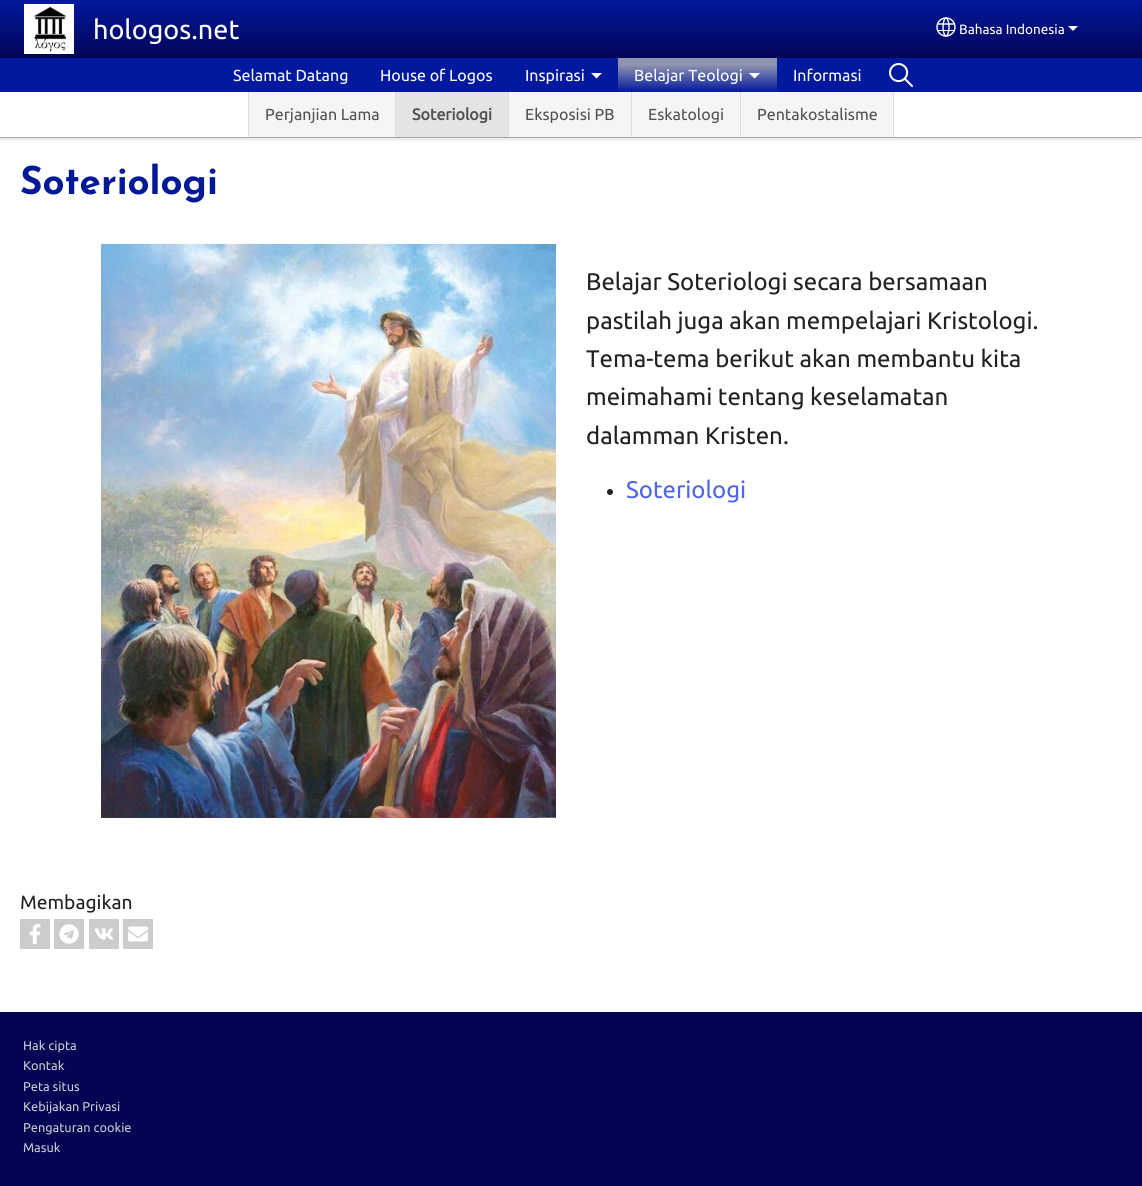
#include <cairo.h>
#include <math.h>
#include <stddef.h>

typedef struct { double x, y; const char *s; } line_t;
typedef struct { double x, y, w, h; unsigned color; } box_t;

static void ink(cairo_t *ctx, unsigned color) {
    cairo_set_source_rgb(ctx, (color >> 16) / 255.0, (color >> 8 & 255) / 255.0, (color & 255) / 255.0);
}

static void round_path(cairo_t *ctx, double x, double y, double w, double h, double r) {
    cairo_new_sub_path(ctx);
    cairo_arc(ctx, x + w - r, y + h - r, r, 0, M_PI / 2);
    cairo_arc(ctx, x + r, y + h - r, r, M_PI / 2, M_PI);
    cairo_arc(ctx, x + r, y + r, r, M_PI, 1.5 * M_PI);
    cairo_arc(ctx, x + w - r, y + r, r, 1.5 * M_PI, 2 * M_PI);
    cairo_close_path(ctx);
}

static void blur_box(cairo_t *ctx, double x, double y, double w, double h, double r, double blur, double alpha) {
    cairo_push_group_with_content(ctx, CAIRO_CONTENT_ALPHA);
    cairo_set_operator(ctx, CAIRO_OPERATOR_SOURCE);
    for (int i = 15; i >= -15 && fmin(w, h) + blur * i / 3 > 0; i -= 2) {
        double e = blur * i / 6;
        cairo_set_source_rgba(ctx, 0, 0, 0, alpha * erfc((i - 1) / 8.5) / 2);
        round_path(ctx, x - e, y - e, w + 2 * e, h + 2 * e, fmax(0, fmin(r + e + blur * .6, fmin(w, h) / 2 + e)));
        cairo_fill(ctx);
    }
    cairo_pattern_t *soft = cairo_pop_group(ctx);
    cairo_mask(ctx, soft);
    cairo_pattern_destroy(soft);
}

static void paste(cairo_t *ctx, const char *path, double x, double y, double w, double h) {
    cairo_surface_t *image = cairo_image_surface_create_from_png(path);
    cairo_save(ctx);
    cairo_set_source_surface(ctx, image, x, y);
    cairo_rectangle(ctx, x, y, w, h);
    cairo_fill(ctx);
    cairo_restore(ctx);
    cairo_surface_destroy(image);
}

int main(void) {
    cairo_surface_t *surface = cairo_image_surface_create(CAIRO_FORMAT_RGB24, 1142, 1186);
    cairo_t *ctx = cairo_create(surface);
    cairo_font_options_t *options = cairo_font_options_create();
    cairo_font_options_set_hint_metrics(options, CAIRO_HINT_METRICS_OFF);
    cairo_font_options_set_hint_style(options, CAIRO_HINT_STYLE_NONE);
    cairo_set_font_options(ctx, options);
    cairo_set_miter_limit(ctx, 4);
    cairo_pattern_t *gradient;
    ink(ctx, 0xFFFFFF);
    cairo_paint(ctx);
    gradient = cairo_pattern_create_linear(571, 0, 571, 58);
    cairo_pattern_add_color_stop_rgba(gradient, 0, 0.004, 0.098, 0.616, 1);
    cairo_pattern_add_color_stop_rgba(gradient, 1, 0.016, 0.016, 0.337, 1);
    cairo_set_source(ctx, gradient);
    cairo_pattern_destroy(gradient);
    cairo_rectangle(ctx, 0, 0, 1142, 58);
    cairo_fill(ctx);
    paste(ctx, "media/1.png", 24, 4, 50, 50);
    cairo_select_font_face(ctx, "Ubuntu", CAIRO_FONT_SLANT_NORMAL, CAIRO_FONT_WEIGHT_NORMAL);
    cairo_set_font_size(ctx, 27);
    ink(ctx, 0xFFFFFE);
    cairo_move_to(ctx, 93, 39);
    cairo_show_text(ctx, "hologos.net");
    cairo_new_path(ctx);
    cairo_arc(ctx, 946, 27, 9, 0, 2 * M_PI);
    cairo_set_line_width(ctx, 1.4);
    cairo_stroke(ctx);
    cairo_new_path(ctx);
    cairo_move_to(ctx, 946, 18);
    cairo_curve_to(ctx, 947.5, 18, 949, 22, 949, 27);
    cairo_curve_to(ctx, 949, 32, 947.5, 36, 946, 36);
    cairo_curve_to(ctx, 944.5, 36, 943, 32, 943, 27);
    cairo_curve_to(ctx, 943, 22, 944.5, 18, 946, 18);
    cairo_close_path(ctx);
    cairo_stroke(ctx);
    cairo_new_path(ctx);
    cairo_move_to(ctx, 937, 24);
    cairo_line_to(ctx, 954.5, 24);
    cairo_stroke(ctx);
    cairo_rectangle(ctx, 937, 30, 18, 1);
    cairo_fill(ctx);
    cairo_set_font_size(ctx, 13.5);
    cairo_move_to(ctx, 959, 34);
    cairo_show_text(ctx, "Bahasa Indonesia");
    cairo_new_path(ctx);
    cairo_move_to(ctx, 1068, 26);
    cairo_line_to(ctx, 1078, 26);
    cairo_line_to(ctx, 1073, 31);
    cairo_close_path(ctx);
    cairo_fill(ctx);
    ink(ctx, 0x01199E);
    cairo_rectangle(ctx, 0, 58, 1142, 34);
    cairo_fill(ctx);
    cairo_set_font_size(ctx, 16);
    ink(ctx, 0xFFFFFE);
    cairo_move_to(ctx, 233, 81);
    cairo_show_text(ctx, "Selamat Datang");
    paste(ctx, "media/2.png", 889, 63, 24, 24);
    gradient = cairo_pattern_create_linear(698, 58, 698, 92);
    cairo_pattern_add_color_stop_rgba(gradient, 0.2, 0.561, 0.58, 0.686, 1);
    cairo_pattern_add_color_stop_rgba(gradient, 1, 0.004, 0.098, 0.62, 1);
    cairo_set_source(ctx, gradient);
    cairo_pattern_destroy(gradient);
    cairo_rectangle(ctx, 618, 58, 159, 34);
    cairo_fill(ctx);
    ink(ctx, 0xFFFFFE);
    cairo_move_to(ctx, 634, 81);
    cairo_show_text(ctx, "Belajar Teologi");
    ink(ctx, 0xFEFFFF);
    cairo_new_path(ctx);
    cairo_move_to(ctx, 749, 73);
    cairo_line_to(ctx, 760, 73);
    cairo_line_to(ctx, 754.5, 78.5);
    cairo_close_path(ctx);
    cairo_fill(ctx);
    cairo_save(ctx);
    cairo_set_fill_rule(ctx, CAIRO_FILL_RULE_EVEN_ODD);
    cairo_new_path(ctx);
    cairo_move_to(ctx, 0, 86);
    cairo_line_to(ctx, 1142, 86);
    cairo_line_to(ctx, 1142, 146);
    cairo_line_to(ctx, 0, 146);
    cairo_close_path(ctx);
    cairo_move_to(ctx, 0, 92);
    cairo_line_to(ctx, 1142, 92);
    cairo_line_to(ctx, 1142, 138);
    cairo_line_to(ctx, 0, 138);
    cairo_close_path(ctx);
    cairo_clip(ctx);
    ink(ctx, 0x000000);
    blur_box(ctx, -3, 92, 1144, 48, 0, 1.5, 0.1);
    cairo_restore(ctx);
    {
        static const box_t items[] = {
            {0, 137, 1142, 1, 0xAAAAAA},
            {249, 92, 146, 45, 0xF5F5F5},
            {248, 92, 1, 45, 0xDDDDDD},
        };
        for (size_t i = 0; i < sizeof items / sizeof *items; i++) {
            ink(ctx, items[i].color);
            cairo_rectangle(ctx, items[i].x, items[i].y, items[i].w, items[i].h);
            cairo_fill(ctx);
        }
    }
    ink(ctx, 0x515151);
    cairo_move_to(ctx, 265, 120);
    cairo_show_text(ctx, "Perjanjian Lama");
    ink(ctx, 0xE4E4E4);
    cairo_rectangle(ctx, 396, 92, 112, 45);
    cairo_fill(ctx);
    ink(ctx, 0xDDDDDD);
    cairo_rectangle(ctx, 395, 92, 1, 45);
    cairo_fill(ctx);
    cairo_select_font_face(ctx, "Ubuntu", CAIRO_FONT_SLANT_NORMAL, CAIRO_FONT_WEIGHT_BOLD);
    ink(ctx, 0x515151);
    cairo_move_to(ctx, 412, 120);
    cairo_show_text(ctx, "Soteriologi");
    ink(ctx, 0xF5F5F5);
    cairo_rectangle(ctx, 509, 92, 122, 45);
    cairo_fill(ctx);
    ink(ctx, 0xDDDDDD);
    cairo_rectangle(ctx, 508, 92, 1, 45);
    cairo_fill(ctx);
    cairo_select_font_face(ctx, "Ubuntu", CAIRO_FONT_SLANT_NORMAL, CAIRO_FONT_WEIGHT_NORMAL);
    ink(ctx, 0x515151);
    cairo_move_to(ctx, 525, 120);
    cairo_show_text(ctx, "Eksposisi PB");
    ink(ctx, 0xF5F5F5);
    cairo_rectangle(ctx, 632, 92, 108, 45);
    cairo_fill(ctx);
    ink(ctx, 0xDDDDDD);
    cairo_rectangle(ctx, 631, 92, 1, 45);
    cairo_fill(ctx);
    ink(ctx, 0x515151);
    cairo_move_to(ctx, 648, 120);
    cairo_show_text(ctx, "Eskatologi");
    {
        static const box_t items[] = {
            {741, 92, 152, 45, 0xF5F5F5},
            {893, 92, 1, 45, 0xDDDDDD},
            {740, 92, 1, 45, 0xDDDDDD},
        };
        for (size_t i = 0; i < sizeof items / sizeof *items; i++) {
            ink(ctx, items[i].color);
            cairo_rectangle(ctx, items[i].x, items[i].y, items[i].w, items[i].h);
            cairo_fill(ctx);
        }
    }
    ink(ctx, 0x515151);
    cairo_move_to(ctx, 757, 120);
    cairo_show_text(ctx, "Pentakostalisme");
    ink(ctx, 0xFFFFFE);
    cairo_move_to(ctx, 380, 81);
    cairo_show_text(ctx, "House of Logos");
    cairo_move_to(ctx, 525, 81);
    cairo_show_text(ctx, "Inspirasi");
    ink(ctx, 0xFEFFFF);
    cairo_new_path(ctx);
    cairo_move_to(ctx, 591, 73);
    cairo_line_to(ctx, 602, 73);
    cairo_line_to(ctx, 596.5, 78.5);
    cairo_close_path(ctx);
    cairo_fill(ctx);
    ink(ctx, 0xFFFFFE);
    cairo_move_to(ctx, 793, 81);
    cairo_show_text(ctx, "Informasi");
    cairo_select_font_face(ctx, "Josefin Sans", CAIRO_FONT_SLANT_NORMAL, CAIRO_FONT_WEIGHT_BOLD);
    cairo_set_font_size(ctx, 38.5);
    ink(ctx, 0x011996);
    cairo_move_to(ctx, 20, 194);
    cairo_show_text(ctx, "Soteriologi");
    paste(ctx, "media/3.png", 101, 244, 455, 574);
    cairo_select_font_face(ctx, "Ubuntu", CAIRO_FONT_SLANT_NORMAL, CAIRO_FONT_WEIGHT_NORMAL);
    cairo_set_font_size(ctx, 24);
    ink(ctx, 0x222222);
    {
        static const line_t items[] = {
            {586, 290, "Belajar Soteriologi secara bersamaan"},
            {586, 329, "pastilah juga akan mempelajari Kristologi."},
            {586, 367, "Tema-tema berikut akan membantu kita"},
            {586, 405, "meimahami tentang keselamatan"},
            {586, 444, "dalamman Kristen."},
        };
        for (size_t i = 0; i < sizeof items / sizeof *items; i++) {
            cairo_move_to(ctx, items[i].x, items[i].y);
            cairo_show_text(ctx, items[i].s);
        }
    }
    cairo_new_path(ctx);
    cairo_arc(ctx, 610, 492, 3, 0, 2 * M_PI);
    cairo_fill(ctx);
    ink(ctx, 0x4E66EC);
    cairo_move_to(ctx, 626, 498);
    cairo_show_text(ctx, "Soteriologi");
    cairo_set_font_size(ctx, 19.25);
    ink(ctx, 0x222222);
    cairo_move_to(ctx, 20, 909);
    cairo_show_text(ctx, "Membagikan");
    ink(ctx, 0xCCCCCC);
    cairo_rectangle(ctx, 20, 919, 30, 30);
    cairo_fill(ctx);
    paste(ctx, "media/4.png", 29, 924, 12, 20);
    cairo_rectangle(ctx, 54, 919, 30, 30);
    cairo_fill(ctx);
    paste(ctx, "media/5.png", 59, 924, 20, 20);
    cairo_rectangle(ctx, 89, 919, 30, 30);
    cairo_fill(ctx);
    paste(ctx, "media/6.png", 94, 928, 20, 12);
    cairo_rectangle(ctx, 123, 919, 30, 30);
    cairo_fill(ctx);
    paste(ctx, "media/7.png", 128, 926, 20, 16);
    ink(ctx, 0x040455);
    cairo_rectangle(ctx, 0, 1012, 1142, 174);
    cairo_fill(ctx);
    cairo_set_font_size(ctx, 12.75);
    ink(ctx, 0xCCCCCC);
    {
        static const line_t items[] = {
            {23, 1050, "Hak cipta"},
            {23, 1070, "Kontak"},
            {23, 1091, "Peta situs"},
            {23, 1111, "Kebijakan Privasi"},
            {23, 1132, "Pengaturan cookie"},
            {23, 1152, "Masuk"},
        };
        for (size_t i = 0; i < sizeof items / sizeof *items; i++) {
            cairo_move_to(ctx, items[i].x, items[i].y);
            cairo_show_text(ctx, items[i].s);
        }
    }
    cairo_surface_write_to_png(surface, "image.png");
    cairo_font_options_destroy(options);
    cairo_destroy(ctx);
    cairo_surface_destroy(surface);
    return 0;
}
